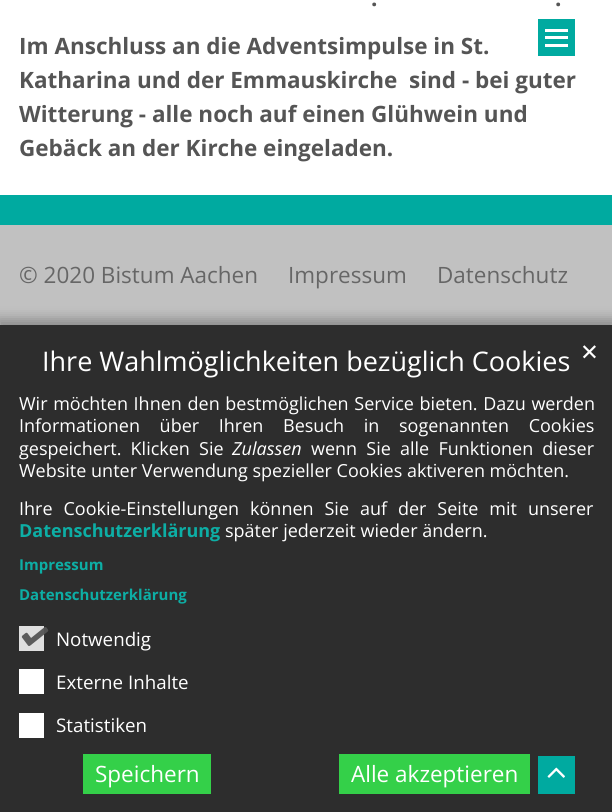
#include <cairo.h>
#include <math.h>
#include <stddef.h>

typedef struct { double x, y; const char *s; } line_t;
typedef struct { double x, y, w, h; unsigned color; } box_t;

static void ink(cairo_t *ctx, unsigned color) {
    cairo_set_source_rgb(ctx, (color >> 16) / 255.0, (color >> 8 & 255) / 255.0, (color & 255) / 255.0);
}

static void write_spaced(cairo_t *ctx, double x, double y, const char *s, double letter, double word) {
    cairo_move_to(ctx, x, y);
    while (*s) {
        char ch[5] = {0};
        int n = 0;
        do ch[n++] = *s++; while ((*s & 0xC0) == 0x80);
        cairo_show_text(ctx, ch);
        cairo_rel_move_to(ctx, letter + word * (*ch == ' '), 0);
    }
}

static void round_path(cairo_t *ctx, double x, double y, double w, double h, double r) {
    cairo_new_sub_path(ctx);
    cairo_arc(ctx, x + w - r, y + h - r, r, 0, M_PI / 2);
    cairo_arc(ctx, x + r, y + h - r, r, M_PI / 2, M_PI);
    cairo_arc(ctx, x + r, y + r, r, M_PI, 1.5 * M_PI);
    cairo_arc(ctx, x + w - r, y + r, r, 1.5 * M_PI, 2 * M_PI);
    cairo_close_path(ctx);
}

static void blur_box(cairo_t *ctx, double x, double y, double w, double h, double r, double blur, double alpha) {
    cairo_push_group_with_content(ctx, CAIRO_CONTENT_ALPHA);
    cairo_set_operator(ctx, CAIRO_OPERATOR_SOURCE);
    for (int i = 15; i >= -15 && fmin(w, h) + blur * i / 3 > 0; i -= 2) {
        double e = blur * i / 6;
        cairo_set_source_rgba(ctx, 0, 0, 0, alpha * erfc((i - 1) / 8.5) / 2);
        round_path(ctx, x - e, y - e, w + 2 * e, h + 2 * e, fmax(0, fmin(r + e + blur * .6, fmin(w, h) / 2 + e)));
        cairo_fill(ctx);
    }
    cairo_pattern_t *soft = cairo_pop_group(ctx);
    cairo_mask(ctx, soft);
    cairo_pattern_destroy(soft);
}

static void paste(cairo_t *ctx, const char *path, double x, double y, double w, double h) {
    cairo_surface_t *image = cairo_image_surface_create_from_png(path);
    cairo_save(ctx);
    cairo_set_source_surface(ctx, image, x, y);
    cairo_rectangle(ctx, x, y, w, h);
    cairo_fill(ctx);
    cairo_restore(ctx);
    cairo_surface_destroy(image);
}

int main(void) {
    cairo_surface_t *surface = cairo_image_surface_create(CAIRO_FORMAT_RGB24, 612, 812);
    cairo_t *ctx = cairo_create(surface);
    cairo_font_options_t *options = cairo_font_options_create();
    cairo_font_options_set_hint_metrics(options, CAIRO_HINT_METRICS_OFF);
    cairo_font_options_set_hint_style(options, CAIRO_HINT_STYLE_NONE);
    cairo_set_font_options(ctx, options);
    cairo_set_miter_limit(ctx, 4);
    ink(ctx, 0xFFFFFF);
    cairo_paint(ctx);
    cairo_select_font_face(ctx, "Open Sans", CAIRO_FONT_SLANT_NORMAL, CAIRO_FONT_WEIGHT_BOLD);
    cairo_set_font_size(ctx, 22.5);
    ink(ctx, 0x555555);
    {
        static const line_t items[] = {
            {371, 6, "."},
            {555, 6, "."},
            {19, 54, "Im Anschluss an die Adventsimpulse in St."},
            {19, 88, "Katharina und der Emmauskirche  sind - bei guter"},
            {19, 122, "Witterung - alle noch auf einen Glühwein und"},
            {19, 156, "Gebäck an der Kirche eingeladen."},
        };
        for (size_t i = 0; i < sizeof items / sizeof *items; i++) {
            cairo_move_to(ctx, items[i].x, items[i].y);
            cairo_show_text(ctx, items[i].s);
        }
    }
    {
        static const box_t items[] = {
            {538, 19, 37, 37, 0x00AAA0},
            {545, 36, 23, 3, 0xFFFFFF},
            {545, 29, 23, 3, 0xFFFFFF},
            {545, 44, 23, 3, 0xFFFFFF},
            {0, 195, 612, 30, 0x00AAA0},
            {0, 225, 612, 100, 0xC1C1C1},
        };
        for (size_t i = 0; i < sizeof items / sizeof *items; i++) {
            ink(ctx, items[i].color);
            cairo_rectangle(ctx, items[i].x, items[i].y, items[i].w, items[i].h);
            cairo_fill(ctx);
        }
    }
    cairo_select_font_face(ctx, "Open Sans", CAIRO_FONT_SLANT_NORMAL, CAIRO_FONT_WEIGHT_NORMAL);
    ink(ctx, 0x666666);
    {
        static const line_t items[] = {
            {19, 283, "© 2020 Bistum Aachen"},
            {288, 283, "Impressum"},
            {437, 283, "Datenschutz"},
        };
        for (size_t i = 0; i < sizeof items / sizeof *items; i++) {
            cairo_move_to(ctx, items[i].x, items[i].y);
            cairo_show_text(ctx, items[i].s);
        }
    }
    ink(ctx, 0x0A0A0A);
    blur_box(ctx, -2, 319, 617, 492, 0, 6, 0.3);
    ink(ctx, 0x2D2D2D);
    cairo_rectangle(ctx, 0, 325, 612, 487);
    cairo_fill(ctx);
    cairo_set_font_size(ctx, 27);
    ink(ctx, 0xFFFFFF);
    cairo_move_to(ctx, 42, 371);
    cairo_show_text(ctx, "Ihre Wahlmöglichkeiten bezüglich Cookies");
    cairo_select_font_face(ctx, "DejaVu Sans", CAIRO_FONT_SLANT_NORMAL, CAIRO_FONT_WEIGHT_NORMAL);
    cairo_set_font_size(ctx, 22.5);
    cairo_move_to(ctx, 580, 360);
    cairo_show_text(ctx, "✕");
    cairo_select_font_face(ctx, "Open Sans", CAIRO_FONT_SLANT_NORMAL, CAIRO_FONT_WEIGHT_NORMAL);
    cairo_set_font_size(ctx, 18);
    write_spaced(ctx, 19, 410, "Wir möchten Ihnen den bestmöglichen Service bieten. Dazu werden", 0, 1);
    write_spaced(ctx, 19, 432, "Informationen über Ihren Besuch in sogenannten Cookies", 0, 15);
    write_spaced(ctx, 19, 455, "gespeichert. Klicken Sie", 0, 4.5);
    cairo_select_font_face(ctx, "Open Sans", CAIRO_FONT_SLANT_ITALIC, CAIRO_FONT_WEIGHT_NORMAL);
    cairo_move_to(ctx, 232, 455);
    cairo_show_text(ctx, "Zulassen");
    cairo_select_font_face(ctx, "Open Sans", CAIRO_FONT_SLANT_NORMAL, CAIRO_FONT_WEIGHT_NORMAL);
    write_spaced(ctx, 311, 455, "wenn Sie alle Funktionen dieser", 0, 4.5);
    cairo_move_to(ctx, 19, 477);
    cairo_show_text(ctx, "Website unter Verwendung spezieller Cookies aktiveren möchten.");
    write_spaced(ctx, 19, 515, "Ihre Cookie-Einstellungen können Sie auf der Seite mit unserer", 0, 6.25);
    cairo_select_font_face(ctx, "Open Sans", CAIRO_FONT_SLANT_NORMAL, CAIRO_FONT_WEIGHT_BOLD);
    ink(ctx, 0x0DAEA5);
    cairo_move_to(ctx, 19, 537);
    cairo_show_text(ctx, "Datenschutzerklärung");
    cairo_select_font_face(ctx, "Open Sans", CAIRO_FONT_SLANT_NORMAL, CAIRO_FONT_WEIGHT_NORMAL);
    ink(ctx, 0xFFFFFF);
    cairo_move_to(ctx, 225, 537);
    cairo_show_text(ctx, "später jederzeit wieder ändern.");
    cairo_select_font_face(ctx, "Open Sans", CAIRO_FONT_SLANT_NORMAL, CAIRO_FONT_WEIGHT_BOLD);
    cairo_set_font_size(ctx, 15);
    ink(ctx, 0x0DAEA5);
    cairo_move_to(ctx, 19, 570);
    cairo_show_text(ctx, "Impressum");
    cairo_move_to(ctx, 19, 600);
    cairo_show_text(ctx, "Datenschutzerklärung");
    ink(ctx, 0xDFDFDF);
    cairo_rectangle(ctx, 19, 626, 25, 25);
    cairo_fill(ctx);
    paste(ctx, "media/1.png", 21, 627, 28, 19);
    cairo_select_font_face(ctx, "Open Sans", CAIRO_FONT_SLANT_NORMAL, CAIRO_FONT_WEIGHT_NORMAL);
    cairo_set_font_size(ctx, 18.75);
    ink(ctx, 0xFFFFFF);
    cairo_move_to(ctx, 56, 646);
    cairo_show_text(ctx, "Notwendig");
    cairo_rectangle(ctx, 19, 669, 25, 25);
    cairo_fill(ctx);
    cairo_move_to(ctx, 56, 689);
    cairo_show_text(ctx, "Externe Inhalte");
    cairo_rectangle(ctx, 19, 713, 25, 25);
    cairo_fill(ctx);
    cairo_move_to(ctx, 56, 732);
    cairo_show_text(ctx, "Statistiken");
    ink(ctx, 0x34D049);
    cairo_rectangle(ctx, 83, 754, 128, 40);
    cairo_fill(ctx);
    cairo_set_font_size(ctx, 22.5);
    ink(ctx, 0xFFFFFF);
    cairo_move_to(ctx, 95, 782);
    cairo_show_text(ctx, "Speichern");
    ink(ctx, 0x34D049);
    cairo_rectangle(ctx, 339, 754, 191, 40);
    cairo_fill(ctx);
    ink(ctx, 0xFFFFFF);
    cairo_move_to(ctx, 351, 782);
    cairo_show_text(ctx, "Alle akzeptieren");
    ink(ctx, 0x00AAA0);
    cairo_rectangle(ctx, 538, 756, 37, 38);
    cairo_fill(ctx);
    paste(ctx, "media/2.png", 547, 767, 18, 11);
    cairo_surface_write_to_png(surface, "image.png");
    cairo_font_options_destroy(options);
    cairo_destroy(ctx);
    cairo_surface_destroy(surface);
    return 0;
}
